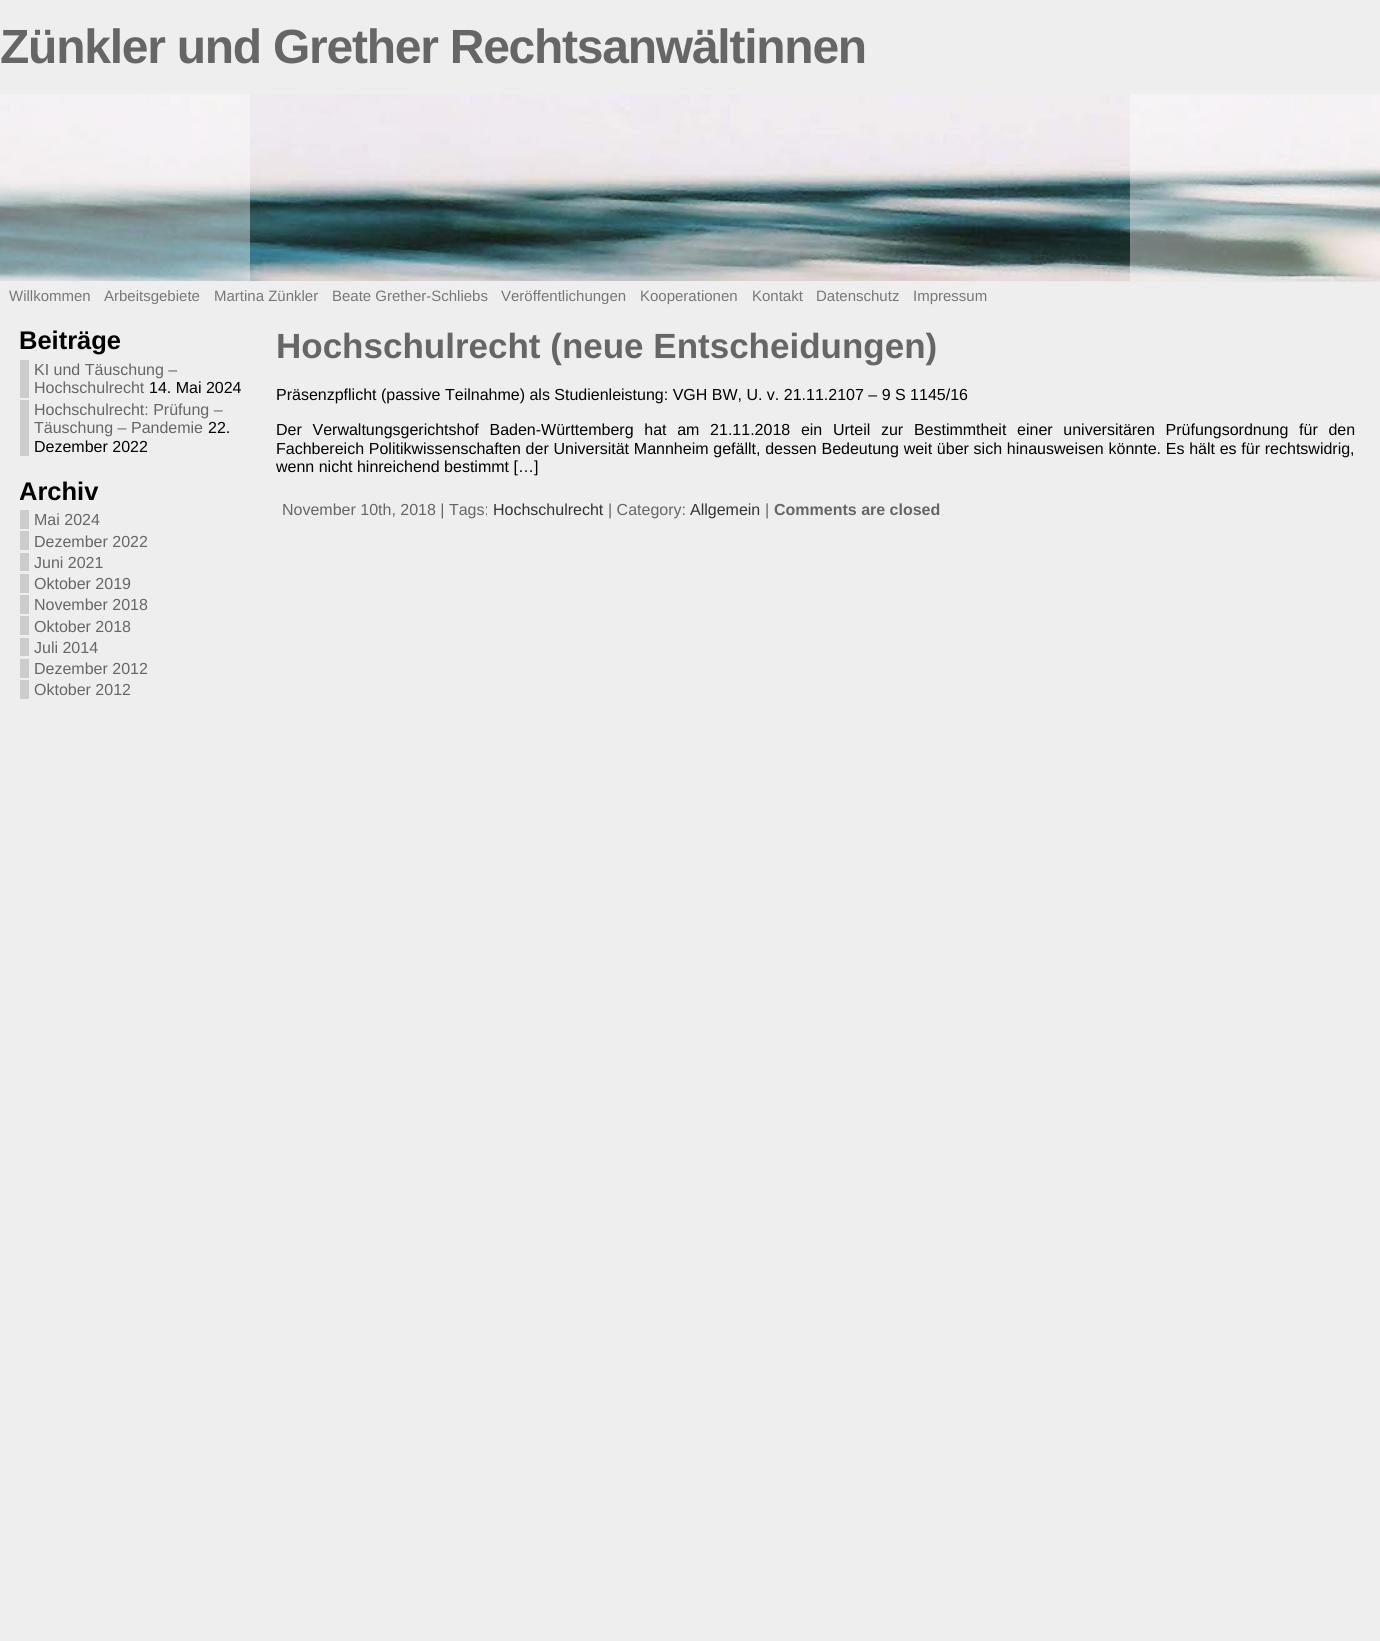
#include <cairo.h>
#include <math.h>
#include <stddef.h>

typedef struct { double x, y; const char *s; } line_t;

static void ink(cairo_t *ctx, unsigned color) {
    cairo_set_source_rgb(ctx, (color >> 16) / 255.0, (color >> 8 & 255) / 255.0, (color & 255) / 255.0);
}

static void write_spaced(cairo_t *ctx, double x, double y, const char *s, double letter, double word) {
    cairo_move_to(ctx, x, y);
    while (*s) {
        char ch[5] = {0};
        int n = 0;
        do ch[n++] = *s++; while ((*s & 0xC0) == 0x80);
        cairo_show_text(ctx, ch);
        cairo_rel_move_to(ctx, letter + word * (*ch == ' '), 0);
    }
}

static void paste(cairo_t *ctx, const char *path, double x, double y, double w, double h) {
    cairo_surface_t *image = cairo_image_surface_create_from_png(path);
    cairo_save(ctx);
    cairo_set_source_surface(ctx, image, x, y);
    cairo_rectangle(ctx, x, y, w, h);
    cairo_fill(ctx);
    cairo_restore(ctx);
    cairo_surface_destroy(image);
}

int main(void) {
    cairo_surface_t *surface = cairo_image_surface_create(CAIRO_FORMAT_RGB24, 1380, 1641);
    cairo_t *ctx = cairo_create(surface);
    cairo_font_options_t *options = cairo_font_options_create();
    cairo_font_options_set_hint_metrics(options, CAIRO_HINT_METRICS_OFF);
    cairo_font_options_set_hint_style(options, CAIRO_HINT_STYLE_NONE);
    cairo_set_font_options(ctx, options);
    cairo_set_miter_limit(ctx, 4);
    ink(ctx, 0xEEEEEE);
    cairo_paint(ctx);
    cairo_select_font_face(ctx, "Liberation Sans", CAIRO_FONT_SLANT_NORMAL, CAIRO_FONT_WEIGHT_BOLD);
    cairo_set_font_size(ctx, 48);
    ink(ctx, 0x666666);
    write_spaced(ctx, 0, 63, "Zünkler und Grether Rechtsanwältinnen", -1.25, 0);
    paste(ctx, "media/1.png", 0, 94, 1380, 188);
    cairo_set_source_rgba(ctx, 1, 1, 1, 0.4);
    cairo_rectangle(ctx, 0, 94, 250, 187);
    cairo_fill(ctx);
    cairo_rectangle(ctx, 1130, 94, 250, 187);
    cairo_fill(ctx);
    ink(ctx, 0xEEEEEE);
    cairo_rectangle(ctx, 1, 281, 994, 1);
    cairo_fill(ctx);
    cairo_select_font_face(ctx, "Liberation Sans", CAIRO_FONT_SLANT_NORMAL, CAIRO_FONT_WEIGHT_NORMAL);
    cairo_set_font_size(ctx, 15);
    ink(ctx, 0x777777);
    {
        static const line_t items[] = {
            {9, 301, "Willkommen"},
            {104, 301, "Arbeitsgebiete"},
            {214, 301, "Martina Zünkler"},
            {332, 301, "Beate Grether-Schliebs"},
            {501, 301, "Veröffentlichungen"},
            {640, 301, "Kooperationen"},
            {752, 301, "Kontakt"},
            {816, 301, "Datenschutz"},
            {913, 301, "Impressum"},
        };
        for (size_t i = 0; i < sizeof items / sizeof *items; i++) {
            cairo_move_to(ctx, items[i].x, items[i].y);
            cairo_show_text(ctx, items[i].s);
        }
    }
    cairo_select_font_face(ctx, "Liberation Sans", CAIRO_FONT_SLANT_NORMAL, CAIRO_FONT_WEIGHT_BOLD);
    cairo_set_font_size(ctx, 25.5);
    ink(ctx, 0x000000);
    cairo_move_to(ctx, 19, 349);
    cairo_show_text(ctx, "Beiträge");
    ink(ctx, 0xCCCCCC);
    cairo_rectangle(ctx, 20, 360, 9, 38);
    cairo_fill(ctx);
    cairo_select_font_face(ctx, "Liberation Sans", CAIRO_FONT_SLANT_NORMAL, CAIRO_FONT_WEIGHT_NORMAL);
    cairo_set_font_size(ctx, 16);
    ink(ctx, 0x666666);
    cairo_move_to(ctx, 34, 375);
    cairo_show_text(ctx, "KI und Täuschung –");
    cairo_move_to(ctx, 34, 393);
    cairo_show_text(ctx, "Hochschulrecht");
    ink(ctx, 0x000000);
    cairo_move_to(ctx, 149, 393);
    cairo_show_text(ctx, "14. Mai 2024");
    ink(ctx, 0xCCCCCC);
    cairo_rectangle(ctx, 20, 400, 9, 56);
    cairo_fill(ctx);
    ink(ctx, 0x666666);
    cairo_move_to(ctx, 34, 415);
    cairo_show_text(ctx, "Hochschulrecht: Prüfung –");
    cairo_move_to(ctx, 34, 433);
    cairo_show_text(ctx, "Täuschung – Pandemie");
    ink(ctx, 0x000000);
    cairo_move_to(ctx, 208, 433);
    cairo_show_text(ctx, "22.");
    cairo_move_to(ctx, 34, 452);
    cairo_show_text(ctx, "Dezember 2022");
    cairo_select_font_face(ctx, "Liberation Sans", CAIRO_FONT_SLANT_NORMAL, CAIRO_FONT_WEIGHT_BOLD);
    cairo_set_font_size(ctx, 25.5);
    cairo_move_to(ctx, 19, 500);
    cairo_show_text(ctx, "Archiv");
    ink(ctx, 0xCCCCCC);
    cairo_rectangle(ctx, 20, 510, 9, 19);
    cairo_fill(ctx);
    cairo_select_font_face(ctx, "Liberation Sans", CAIRO_FONT_SLANT_NORMAL, CAIRO_FONT_WEIGHT_NORMAL);
    cairo_set_font_size(ctx, 16);
    ink(ctx, 0x666666);
    cairo_move_to(ctx, 34, 525);
    cairo_show_text(ctx, "Mai 2024");
    ink(ctx, 0xCCCCCC);
    cairo_rectangle(ctx, 20, 531, 9, 19);
    cairo_fill(ctx);
    ink(ctx, 0x666666);
    cairo_move_to(ctx, 34, 547);
    cairo_show_text(ctx, "Dezember 2022");
    ink(ctx, 0xCCCCCC);
    cairo_rectangle(ctx, 20, 553, 9, 18);
    cairo_fill(ctx);
    ink(ctx, 0x666666);
    cairo_move_to(ctx, 34, 568);
    cairo_show_text(ctx, "Juni 2021");
    ink(ctx, 0xCCCCCC);
    cairo_rectangle(ctx, 20, 574, 9, 19);
    cairo_fill(ctx);
    ink(ctx, 0x666666);
    cairo_move_to(ctx, 34, 589);
    cairo_show_text(ctx, "Oktober 2019");
    ink(ctx, 0xCCCCCC);
    cairo_rectangle(ctx, 20, 595, 9, 19);
    cairo_fill(ctx);
    ink(ctx, 0x666666);
    cairo_move_to(ctx, 34, 610);
    cairo_show_text(ctx, "November 2018");
    ink(ctx, 0xCCCCCC);
    cairo_rectangle(ctx, 20, 616, 9, 19);
    cairo_fill(ctx);
    ink(ctx, 0x666666);
    cairo_move_to(ctx, 34, 632);
    cairo_show_text(ctx, "Oktober 2018");
    ink(ctx, 0xCCCCCC);
    cairo_rectangle(ctx, 20, 638, 9, 18);
    cairo_fill(ctx);
    ink(ctx, 0x666666);
    cairo_move_to(ctx, 34, 653);
    cairo_show_text(ctx, "Juli 2014");
    ink(ctx, 0xCCCCCC);
    cairo_rectangle(ctx, 20, 659, 9, 19);
    cairo_fill(ctx);
    ink(ctx, 0x666666);
    cairo_move_to(ctx, 34, 674);
    cairo_show_text(ctx, "Dezember 2012");
    ink(ctx, 0xCCCCCC);
    cairo_rectangle(ctx, 20, 680, 9, 19);
    cairo_fill(ctx);
    ink(ctx, 0x666666);
    cairo_move_to(ctx, 34, 695);
    cairo_show_text(ctx, "Oktober 2012");
    cairo_select_font_face(ctx, "Liberation Sans", CAIRO_FONT_SLANT_NORMAL, CAIRO_FONT_WEIGHT_BOLD);
    cairo_set_font_size(ctx, 35);
    cairo_move_to(ctx, 276, 358);
    cairo_show_text(ctx, "Hochschulrecht (neue Entscheidungen)");
    cairo_select_font_face(ctx, "Liberation Sans", CAIRO_FONT_SLANT_NORMAL, CAIRO_FONT_WEIGHT_NORMAL);
    cairo_set_font_size(ctx, 16);
    ink(ctx, 0x000000);
    cairo_move_to(ctx, 276, 400);
    cairo_show_text(ctx, "Präsenzpflicht (passive Teilnahme) als Studienleistung: VGH BW, U. v. 21.11.2107 – 9 S 1145/16");
    write_spaced(ctx, 276, 435, "Der Verwaltungsgerichtshof Baden-Württemberg hat am 21.11.2018 ein Urteil zur Bestimmtheit einer universitären Prüfungsordnung für den", 0, 6.25);
    write_spaced(ctx, 276, 454, "Fachbereich Politikwissenschaften der Universität Mannheim gefällt, dessen Bedeutung weit über sich hinausweisen könnte. Es hält es für rechtswidrig,", 0, 0.3);
    cairo_move_to(ctx, 276, 472);
    cairo_show_text(ctx, "wenn nicht hinreichend bestimmt […]");
    ink(ctx, 0x666666);
    cairo_move_to(ctx, 282, 515);
    cairo_show_text(ctx, "November 10th, 2018 | Tags:");
    ink(ctx, 0x333333);
    cairo_move_to(ctx, 493, 515);
    cairo_show_text(ctx, "Hochschulrecht");
    ink(ctx, 0x666666);
    cairo_move_to(ctx, 608, 515);
    cairo_show_text(ctx, "| Category:");
    ink(ctx, 0x333333);
    cairo_move_to(ctx, 690, 515);
    cairo_show_text(ctx, "Allgemein");
    ink(ctx, 0x666666);
    cairo_move_to(ctx, 765, 515);
    cairo_show_text(ctx, "|");
    cairo_select_font_face(ctx, "Liberation Sans", CAIRO_FONT_SLANT_NORMAL, CAIRO_FONT_WEIGHT_BOLD);
    cairo_move_to(ctx, 774, 515);
    cairo_show_text(ctx, "Comments are closed");
    cairo_surface_write_to_png(surface, "image.png");
    cairo_font_options_destroy(options);
    cairo_destroy(ctx);
    cairo_surface_destroy(surface);
    return 0;
}
